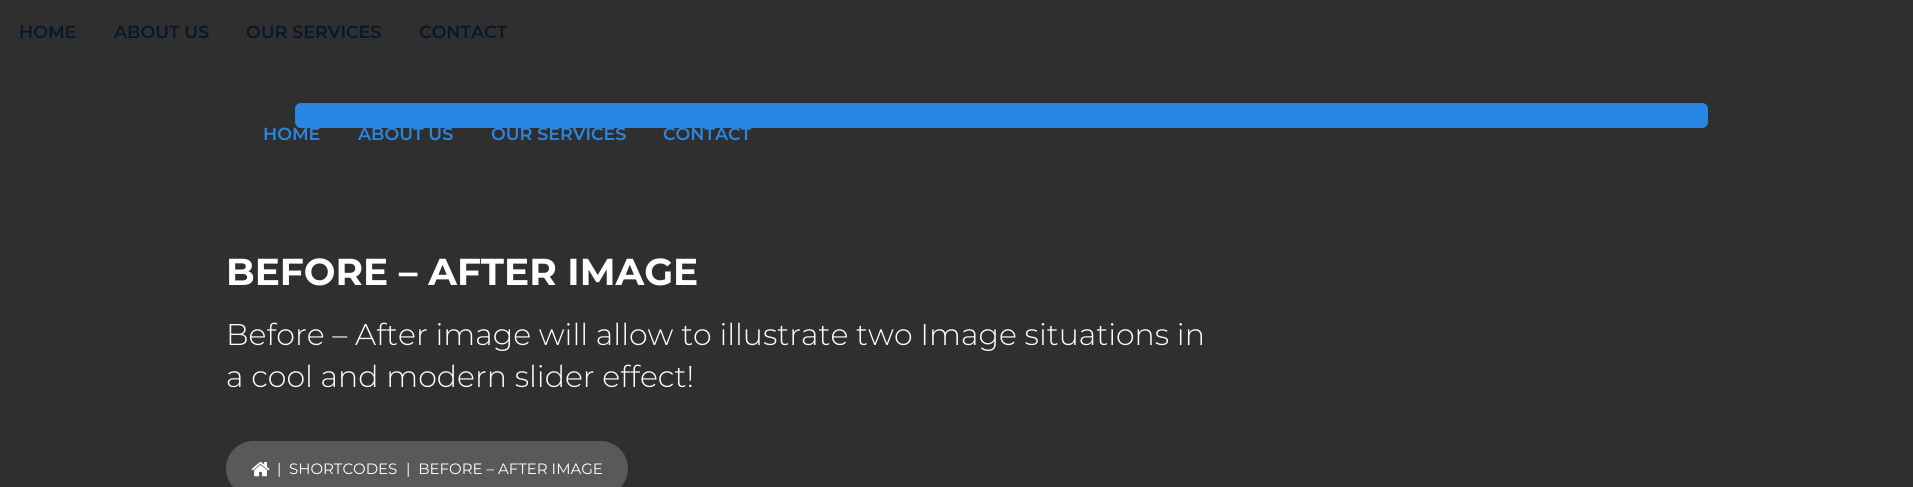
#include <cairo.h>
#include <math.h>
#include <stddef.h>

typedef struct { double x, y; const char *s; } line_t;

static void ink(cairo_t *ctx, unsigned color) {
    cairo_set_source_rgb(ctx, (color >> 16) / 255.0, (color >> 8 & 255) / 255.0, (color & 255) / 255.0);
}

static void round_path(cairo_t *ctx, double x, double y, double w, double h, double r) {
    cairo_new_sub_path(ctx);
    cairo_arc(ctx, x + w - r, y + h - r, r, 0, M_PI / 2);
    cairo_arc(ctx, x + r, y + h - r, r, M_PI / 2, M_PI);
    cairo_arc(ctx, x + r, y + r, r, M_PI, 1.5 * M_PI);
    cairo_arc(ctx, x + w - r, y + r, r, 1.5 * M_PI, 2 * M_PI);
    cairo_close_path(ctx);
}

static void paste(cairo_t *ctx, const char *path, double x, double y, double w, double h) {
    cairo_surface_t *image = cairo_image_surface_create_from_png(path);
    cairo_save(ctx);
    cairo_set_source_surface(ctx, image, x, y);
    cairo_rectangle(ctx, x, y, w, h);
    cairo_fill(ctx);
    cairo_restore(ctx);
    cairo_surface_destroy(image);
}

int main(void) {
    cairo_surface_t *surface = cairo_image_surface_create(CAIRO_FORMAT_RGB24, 1913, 487);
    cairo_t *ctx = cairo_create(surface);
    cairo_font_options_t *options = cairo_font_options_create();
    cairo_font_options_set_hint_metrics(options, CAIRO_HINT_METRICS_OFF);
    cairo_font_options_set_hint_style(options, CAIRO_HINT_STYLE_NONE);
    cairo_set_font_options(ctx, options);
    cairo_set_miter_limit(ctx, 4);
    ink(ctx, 0x2F2F2F);
    cairo_paint(ctx);
    cairo_select_font_face(ctx, "Montserrat SemiBold", CAIRO_FONT_SLANT_NORMAL, CAIRO_FONT_WEIGHT_NORMAL);
    cairo_set_font_size(ctx, 17.5);
    ink(ctx, 0x071929);
    {
        static const line_t items[] = {
            {19, 38, "HOME"},
            {114, 38, "ABOUT US"},
            {246, 38, "OUR SERVICES"},
            {419, 38, "CONTACT"},
        };
        for (size_t i = 0; i < sizeof items / sizeof *items; i++) {
            cairo_move_to(ctx, items[i].x, items[i].y);
            cairo_show_text(ctx, items[i].s);
        }
    }
    ink(ctx, 0x2986E2);
    round_path(ctx, 295, 103, 1413, 25, 6);
    cairo_fill(ctx);
    {
        static const line_t items[] = {
            {263, 140, "HOME"},
            {358, 140, "ABOUT US"},
            {491, 140, "OUR SERVICES"},
            {663, 140, "CONTACT"},
        };
        for (size_t i = 0; i < sizeof items / sizeof *items; i++) {
            cairo_move_to(ctx, items[i].x, items[i].y);
            cairo_show_text(ctx, items[i].s);
        }
    }
    cairo_select_font_face(ctx, "Montserrat", CAIRO_FONT_SLANT_NORMAL, CAIRO_FONT_WEIGHT_BOLD);
    cairo_set_font_size(ctx, 37.5);
    ink(ctx, 0xFFFFFF);
    cairo_move_to(ctx, 226, 285);
    cairo_show_text(ctx, "BEFORE – AFTER IMAGE");
    cairo_select_font_face(ctx, "Montserrat Light", CAIRO_FONT_SLANT_NORMAL, CAIRO_FONT_WEIGHT_NORMAL);
    cairo_set_font_size(ctx, 30);
    cairo_move_to(ctx, 226, 345);
    cairo_show_text(ctx, "Before – After image will allow to illustrate two Image situations in");
    cairo_move_to(ctx, 226, 387);
    cairo_show_text(ctx, "a cool and modern slider effect!");
    ink(ctx, 0x595959);
    round_path(ctx, 226, 441, 402, 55, 27.5);
    cairo_fill(ctx);
    paste(ctx, "media/1.png", 251, 461, 19, 16);
    cairo_select_font_face(ctx, "Montserrat", CAIRO_FONT_SLANT_NORMAL, CAIRO_FONT_WEIGHT_NORMAL);
    cairo_set_font_size(ctx, 15);
    ink(ctx, 0xFFFFFF);
    {
        static const line_t items[] = {
            {277, 474, "|"},
            {289, 474, "SHORTCODES"},
            {406, 474, "|  BEFORE – AFTER IMAGE"},
        };
        for (size_t i = 0; i < sizeof items / sizeof *items; i++) {
            cairo_move_to(ctx, items[i].x, items[i].y);
            cairo_show_text(ctx, items[i].s);
        }
    }
    cairo_surface_write_to_png(surface, "image.png");
    cairo_font_options_destroy(options);
    cairo_destroy(ctx);
    cairo_surface_destroy(surface);
    return 0;
}
